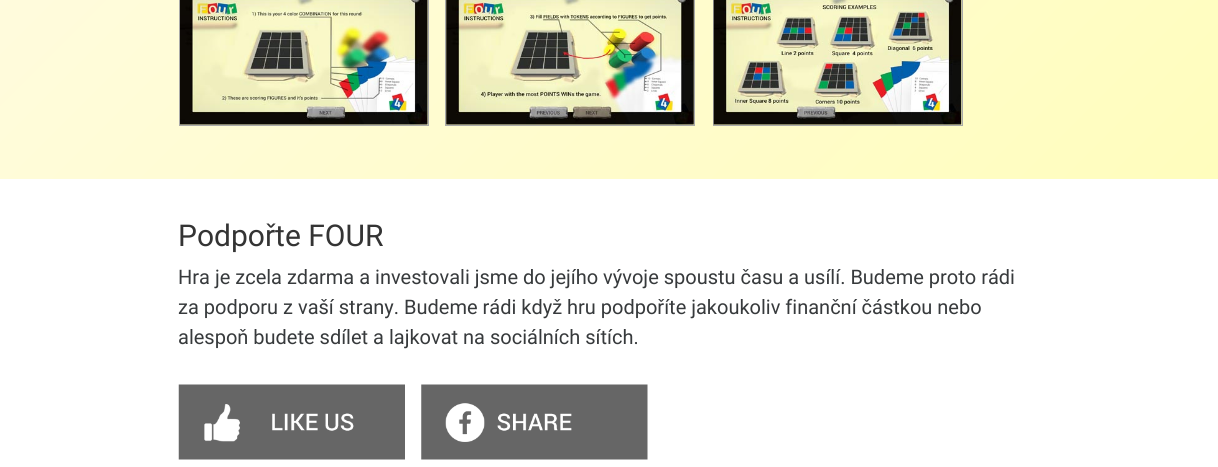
#include <cairo.h>
#include <math.h>
#include <stddef.h>

typedef struct { double x, y; const char *s; } line_t;

static void ink(cairo_t *ctx, unsigned color) {
    cairo_set_source_rgb(ctx, (color >> 16) / 255.0, (color >> 8 & 255) / 255.0, (color & 255) / 255.0);
}

static void paste(cairo_t *ctx, const char *path, double x, double y, double w, double h) {
    cairo_surface_t *image = cairo_image_surface_create_from_png(path);
    cairo_save(ctx);
    cairo_set_source_surface(ctx, image, x, y);
    cairo_rectangle(ctx, x, y, w, h);
    cairo_fill(ctx);
    cairo_restore(ctx);
    cairo_surface_destroy(image);
}

int main(void) {
    cairo_surface_t *surface = cairo_image_surface_create(CAIRO_FORMAT_RGB24, 1218, 467);
    cairo_t *ctx = cairo_create(surface);
    cairo_font_options_t *options = cairo_font_options_create();
    cairo_font_options_set_hint_metrics(options, CAIRO_HINT_METRICS_OFF);
    cairo_font_options_set_hint_style(options, CAIRO_HINT_STYLE_NONE);
    cairo_set_font_options(ctx, options);
    cairo_set_miter_limit(ctx, 4);
    cairo_pattern_t *gradient;
    ink(ctx, 0xFFFFFF);
    cairo_paint(ctx);
    gradient = cairo_pattern_create_linear(158, -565, 1060, 337);
    cairo_pattern_add_color_stop_rgba(gradient, 0, 1, 0.984, 0.902, 1);
    cairo_pattern_add_color_stop_rgba(gradient, 1, 1, 0.992, 0.741, 1);
    cairo_set_source(ctx, gradient);
    cairo_pattern_destroy(gradient);
    cairo_rectangle(ctx, 0, 0, 1218, 179);
    cairo_fill(ctx);
    cairo_rectangle(ctx, 179.5, -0.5, 249, 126);
    ink(ctx, 0xAAAAAA);
    cairo_set_line_width(ctx, 1);
    cairo_stroke(ctx);
    cairo_rectangle(ctx, 445.5, -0.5, 249, 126);
    cairo_stroke(ctx);
    cairo_rectangle(ctx, 713.5, -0.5, 249, 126);
    cairo_stroke(ctx);
    paste(ctx, "media/1.png", 180, 0, 248, 125);
    paste(ctx, "media/2.png", 446, 0, 248, 125);
    paste(ctx, "media/3.png", 713, 0, 249, 125);
    cairo_select_font_face(ctx, "Roboto", CAIRO_FONT_SLANT_NORMAL, CAIRO_FONT_WEIGHT_NORMAL);
    cairo_set_font_size(ctx, 30);
    ink(ctx, 0x343434);
    cairo_move_to(ctx, 178, 246);
    cairo_show_text(ctx, "Podpořte FOUR");
    cairo_set_font_size(ctx, 20);
    ink(ctx, 0x373A3C);
    {
        static const line_t items[] = {
            {178, 284, "Hra je zcela zdarma a investovali jsme do jejího vývoje spoustu času a usílí. Budeme proto rádi"},
            {178, 314, "za podporu z vaší strany. Budeme rádi když hru podpoříte jakoukoliv finanční částkou nebo"},
            {178, 344, "alespoň budete sdílet a lajkovat na sociálních sítích."},
        };
        for (size_t i = 0; i < sizeof items / sizeof *items; i++) {
            cairo_move_to(ctx, items[i].x, items[i].y);
            cairo_show_text(ctx, items[i].s);
        }
    }
    paste(ctx, "media/4.png", 178, 384, 227, 76);
    paste(ctx, "media/5.png", 421, 384, 227, 76);
    cairo_surface_write_to_png(surface, "image.png");
    cairo_font_options_destroy(options);
    cairo_destroy(ctx);
    cairo_surface_destroy(surface);
    return 0;
}
